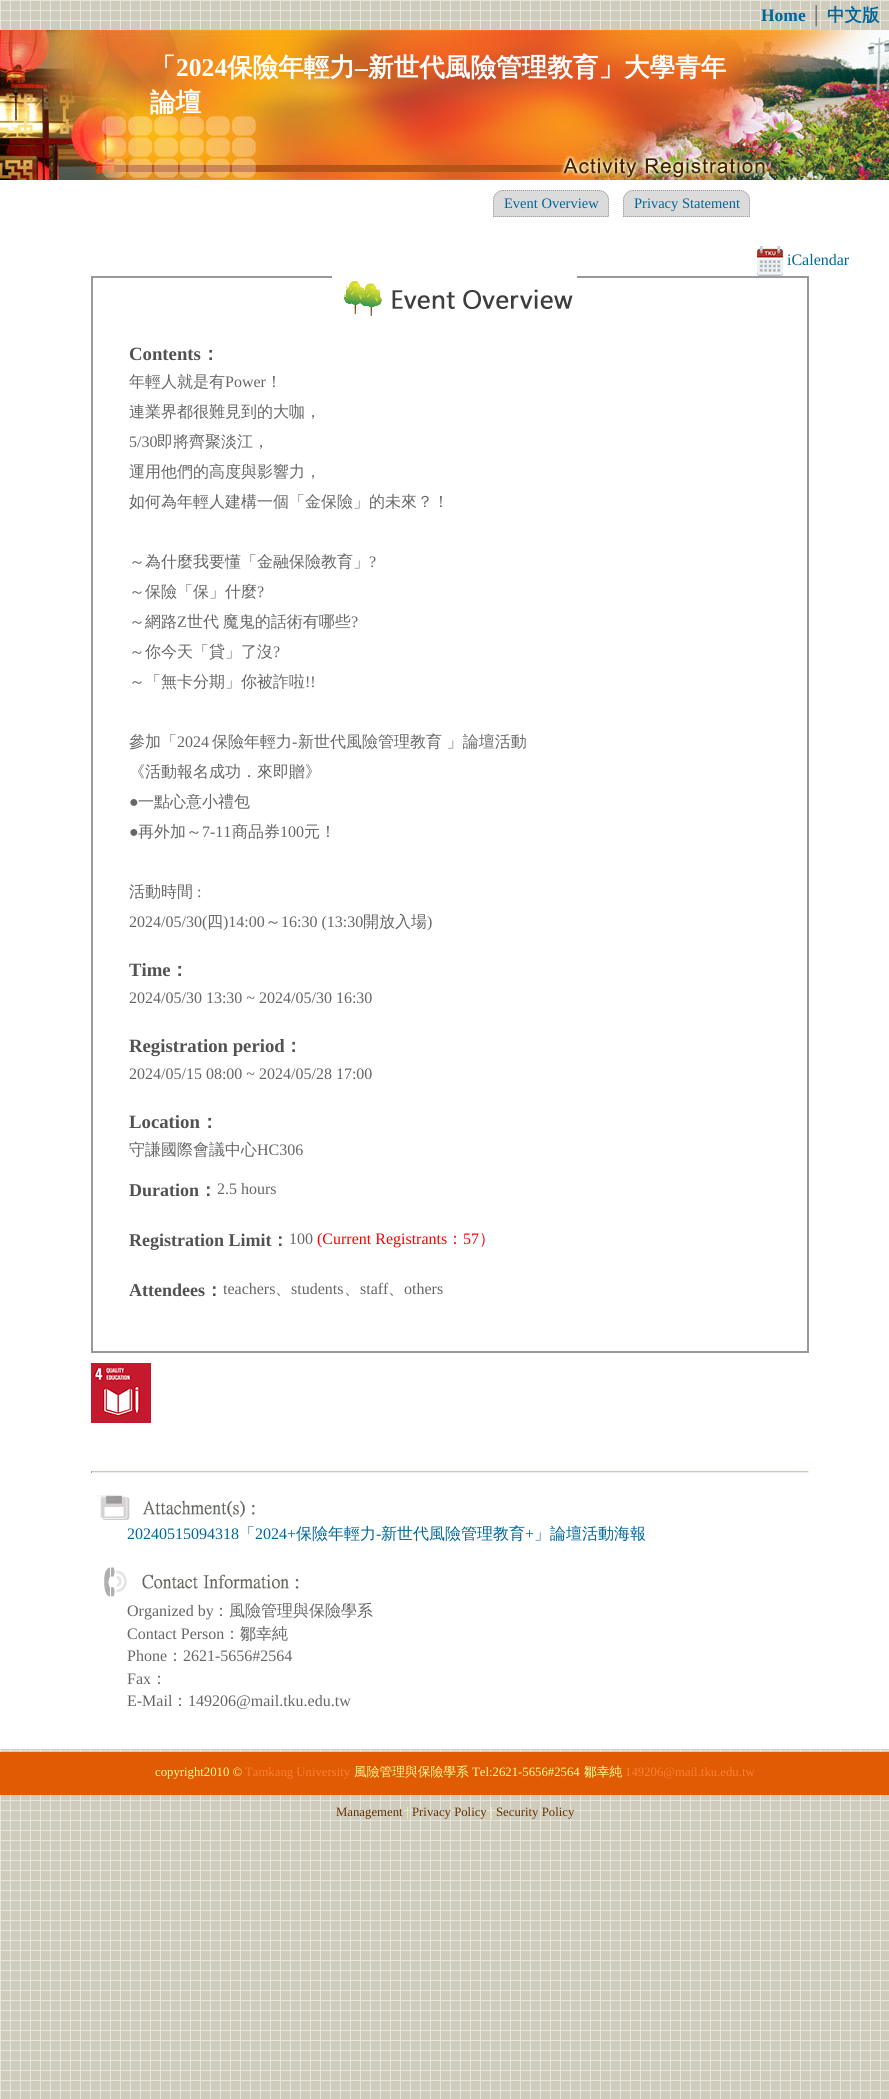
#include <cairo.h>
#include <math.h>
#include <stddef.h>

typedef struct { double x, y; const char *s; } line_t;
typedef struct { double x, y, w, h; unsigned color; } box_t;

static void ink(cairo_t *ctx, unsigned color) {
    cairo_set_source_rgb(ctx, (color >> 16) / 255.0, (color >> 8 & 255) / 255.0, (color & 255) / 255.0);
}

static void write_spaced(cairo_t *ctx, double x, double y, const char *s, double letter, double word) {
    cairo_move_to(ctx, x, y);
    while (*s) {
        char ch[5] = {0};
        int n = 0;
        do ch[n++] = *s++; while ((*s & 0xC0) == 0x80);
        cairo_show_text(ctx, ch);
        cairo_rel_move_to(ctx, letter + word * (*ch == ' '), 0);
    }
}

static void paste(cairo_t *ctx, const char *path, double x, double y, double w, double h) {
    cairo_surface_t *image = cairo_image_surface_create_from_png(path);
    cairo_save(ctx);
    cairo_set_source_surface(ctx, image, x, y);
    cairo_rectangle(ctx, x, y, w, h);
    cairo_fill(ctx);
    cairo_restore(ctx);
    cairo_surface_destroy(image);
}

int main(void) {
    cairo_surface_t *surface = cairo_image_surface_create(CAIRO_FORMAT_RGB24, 889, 2099);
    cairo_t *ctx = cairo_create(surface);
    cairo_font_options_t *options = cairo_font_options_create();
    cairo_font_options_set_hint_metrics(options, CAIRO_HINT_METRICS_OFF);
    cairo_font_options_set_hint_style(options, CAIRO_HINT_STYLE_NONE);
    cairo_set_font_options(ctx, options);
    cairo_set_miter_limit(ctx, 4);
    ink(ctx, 0xFFFFFF);
    cairo_paint(ctx);
    paste(ctx, "media/1.png", 0, 0, 889, 2099);
    cairo_select_font_face(ctx, "Liberation Serif", CAIRO_FONT_SLANT_NORMAL, CAIRO_FONT_WEIGHT_BOLD);
    cairo_set_font_size(ctx, 17.5);
    ink(ctx, 0x006699);
    cairo_move_to(ctx, 761, 21);
    cairo_show_text(ctx, "Home");
    ink(ctx, 0x666666);
    cairo_move_to(ctx, 810, 21);
    cairo_show_text(ctx, "│");
    cairo_select_font_face(ctx, "WenQuanYi Zen Hei", CAIRO_FONT_SLANT_NORMAL, CAIRO_FONT_WEIGHT_BOLD);
    ink(ctx, 0x006699);
    cairo_move_to(ctx, 827, 21);
    cairo_show_text(ctx, "中文版");
    paste(ctx, "media/2.png", 0, 30, 889, 150);
    cairo_set_font_size(ctx, 25.6);
    ink(ctx, 0xFFFFFF);
    cairo_move_to(ctx, 150, 76);
    cairo_show_text(ctx, "「");
    cairo_select_font_face(ctx, "Liberation Serif", CAIRO_FONT_SLANT_NORMAL, CAIRO_FONT_WEIGHT_BOLD);
    cairo_move_to(ctx, 176, 76);
    cairo_show_text(ctx, "2024");
    cairo_select_font_face(ctx, "WenQuanYi Zen Hei", CAIRO_FONT_SLANT_NORMAL, CAIRO_FONT_WEIGHT_BOLD);
    cairo_move_to(ctx, 227, 76);
    cairo_show_text(ctx, "保險年輕力");
    cairo_select_font_face(ctx, "Liberation Serif", CAIRO_FONT_SLANT_NORMAL, CAIRO_FONT_WEIGHT_BOLD);
    cairo_move_to(ctx, 355, 76);
    cairo_show_text(ctx, "–");
    cairo_select_font_face(ctx, "WenQuanYi Zen Hei", CAIRO_FONT_SLANT_NORMAL, CAIRO_FONT_WEIGHT_BOLD);
    cairo_move_to(ctx, 368, 76);
    cairo_show_text(ctx, "新世代風險管理教育」大學青年");
    cairo_move_to(ctx, 150, 111);
    cairo_show_text(ctx, "論壇");
    cairo_rectangle(ctx, 0, 180, 889, 1569);
    cairo_fill(ctx);
    ink(ctx, 0xDBDBDB);
    cairo_new_path(ctx);
    cairo_move_to(ctx, 503, 190);
    cairo_line_to(ctx, 599, 190);
    cairo_curve_to(ctx, 604.5, 190, 609, 194.5, 609, 200);
    cairo_line_to(ctx, 609, 217);
    cairo_line_to(ctx, 493, 217);
    cairo_line_to(ctx, 493, 200);
    cairo_curve_to(ctx, 493, 194.5, 497.5, 190, 503, 190);
    cairo_close_path(ctx);
    cairo_fill(ctx);
    cairo_new_path(ctx);
    cairo_move_to(ctx, 503, 190.5);
    cairo_line_to(ctx, 599, 190.5);
    cairo_curve_to(ctx, 604, 190.5, 608.5, 195, 608.5, 200);
    cairo_line_to(ctx, 608.5, 216.5);
    cairo_line_to(ctx, 493.5, 216.5);
    cairo_line_to(ctx, 493.5, 200);
    cairo_curve_to(ctx, 493.5, 195, 498, 190.5, 503, 190.5);
    cairo_close_path(ctx);
    ink(ctx, 0x999999);
    cairo_set_line_width(ctx, 1);
    cairo_set_dash(ctx, (double[]){1, 1}, 2, 0);
    cairo_stroke(ctx);
    cairo_select_font_face(ctx, "Liberation Serif", CAIRO_FONT_SLANT_NORMAL, CAIRO_FONT_WEIGHT_NORMAL);
    cairo_set_font_size(ctx, 14.5);
    ink(ctx, 0x006699);
    cairo_move_to(ctx, 504, 208);
    cairo_show_text(ctx, "Event Overview");
    ink(ctx, 0xDBDBDB);
    cairo_new_path(ctx);
    cairo_move_to(ctx, 633, 190);
    cairo_line_to(ctx, 740, 190);
    cairo_curve_to(ctx, 745.5, 190, 750, 194.5, 750, 200);
    cairo_line_to(ctx, 750, 217);
    cairo_line_to(ctx, 623, 217);
    cairo_line_to(ctx, 623, 200);
    cairo_curve_to(ctx, 623, 194.5, 627.5, 190, 633, 190);
    cairo_close_path(ctx);
    cairo_fill(ctx);
    cairo_new_path(ctx);
    cairo_move_to(ctx, 633, 190.5);
    cairo_line_to(ctx, 740, 190.5);
    cairo_curve_to(ctx, 745, 190.5, 749.5, 195, 749.5, 200);
    cairo_line_to(ctx, 749.5, 216.5);
    cairo_line_to(ctx, 623.5, 216.5);
    cairo_line_to(ctx, 623.5, 200);
    cairo_curve_to(ctx, 623.5, 195, 628, 190.5, 633, 190.5);
    cairo_close_path(ctx);
    ink(ctx, 0x999999);
    cairo_stroke(ctx);
    ink(ctx, 0x006699);
    cairo_move_to(ctx, 634, 208);
    cairo_show_text(ctx, "Privacy Statement");
    paste(ctx, "media/3.png", 757, 246, 26, 30);
    cairo_set_font_size(ctx, 16);
    cairo_move_to(ctx, 787, 265);
    cairo_show_text(ctx, "iCalendar");
    cairo_rectangle(ctx, 92, 277, 716, 1075);
    ink(ctx, 0x999999);
    cairo_set_line_width(ctx, 2);
    cairo_set_dash(ctx, NULL, 0, 0);
    cairo_stroke(ctx);
    paste(ctx, "media/4.png", 332, 276, 245, 40);
    cairo_select_font_face(ctx, "Liberation Serif", CAIRO_FONT_SLANT_NORMAL, CAIRO_FONT_WEIGHT_BOLD);
    cairo_set_font_size(ctx, 18.75);
    ink(ctx, 0x525252);
    cairo_move_to(ctx, 129, 360);
    cairo_show_text(ctx, "Contents");
    cairo_select_font_face(ctx, "WenQuanYi Zen Hei", CAIRO_FONT_SLANT_NORMAL, CAIRO_FONT_WEIGHT_BOLD);
    cairo_move_to(ctx, 201, 360);
    cairo_show_text(ctx, "：");
    cairo_select_font_face(ctx, "WenQuanYi Zen Hei Medium", CAIRO_FONT_SLANT_NORMAL, CAIRO_FONT_WEIGHT_NORMAL);
    cairo_set_font_size(ctx, 16);
    ink(ctx, 0x666666);
    cairo_move_to(ctx, 129, 387);
    cairo_show_text(ctx, "年輕人就是有");
    cairo_select_font_face(ctx, "Liberation Serif", CAIRO_FONT_SLANT_NORMAL, CAIRO_FONT_WEIGHT_NORMAL);
    cairo_move_to(ctx, 225, 387);
    cairo_show_text(ctx, "Power");
    cairo_select_font_face(ctx, "WenQuanYi Zen Hei Medium", CAIRO_FONT_SLANT_NORMAL, CAIRO_FONT_WEIGHT_NORMAL);
    cairo_move_to(ctx, 266, 387);
    cairo_show_text(ctx, "！");
    cairo_move_to(ctx, 129, 417);
    cairo_show_text(ctx, "連業界都很難見到的大咖，");
    cairo_select_font_face(ctx, "Liberation Serif", CAIRO_FONT_SLANT_NORMAL, CAIRO_FONT_WEIGHT_NORMAL);
    cairo_move_to(ctx, 129, 447);
    cairo_show_text(ctx, "5/30");
    cairo_select_font_face(ctx, "WenQuanYi Zen Hei Medium", CAIRO_FONT_SLANT_NORMAL, CAIRO_FONT_WEIGHT_NORMAL);
    {
        static const line_t items[] = {
            {157, 447, "即將齊聚淡江，"},
            {129, 477, "運用他們的高度與影響力，"},
            {129, 507, "如何為年輕人建構一個「金保險」的未來？！"},
            {129, 567, "～為什麼我要懂「金融保險教育」"},
        };
        for (size_t i = 0; i < sizeof items / sizeof *items; i++) {
            cairo_move_to(ctx, items[i].x, items[i].y);
            cairo_show_text(ctx, items[i].s);
        }
    }
    cairo_select_font_face(ctx, "Liberation Serif", CAIRO_FONT_SLANT_NORMAL, CAIRO_FONT_WEIGHT_NORMAL);
    cairo_move_to(ctx, 369, 567);
    cairo_show_text(ctx, "?");
    cairo_select_font_face(ctx, "WenQuanYi Zen Hei Medium", CAIRO_FONT_SLANT_NORMAL, CAIRO_FONT_WEIGHT_NORMAL);
    cairo_move_to(ctx, 129, 597);
    cairo_show_text(ctx, "～保險「保」什麼");
    cairo_select_font_face(ctx, "Liberation Serif", CAIRO_FONT_SLANT_NORMAL, CAIRO_FONT_WEIGHT_NORMAL);
    cairo_move_to(ctx, 257, 597);
    cairo_show_text(ctx, "?");
    cairo_select_font_face(ctx, "WenQuanYi Zen Hei Medium", CAIRO_FONT_SLANT_NORMAL, CAIRO_FONT_WEIGHT_NORMAL);
    cairo_move_to(ctx, 129, 627);
    cairo_show_text(ctx, "～網路");
    cairo_select_font_face(ctx, "Liberation Serif", CAIRO_FONT_SLANT_NORMAL, CAIRO_FONT_WEIGHT_NORMAL);
    cairo_move_to(ctx, 177, 627);
    cairo_show_text(ctx, "Z");
    cairo_select_font_face(ctx, "WenQuanYi Zen Hei Medium", CAIRO_FONT_SLANT_NORMAL, CAIRO_FONT_WEIGHT_NORMAL);
    write_spaced(ctx, 187, 627, "世代 魔鬼的話術有哪些", 0, -1);
    cairo_select_font_face(ctx, "Liberation Serif", CAIRO_FONT_SLANT_NORMAL, CAIRO_FONT_WEIGHT_NORMAL);
    cairo_move_to(ctx, 351, 627);
    cairo_show_text(ctx, "?");
    cairo_select_font_face(ctx, "WenQuanYi Zen Hei Medium", CAIRO_FONT_SLANT_NORMAL, CAIRO_FONT_WEIGHT_NORMAL);
    cairo_move_to(ctx, 129, 657);
    cairo_show_text(ctx, "～你今天「貸」了沒");
    cairo_select_font_face(ctx, "Liberation Serif", CAIRO_FONT_SLANT_NORMAL, CAIRO_FONT_WEIGHT_NORMAL);
    cairo_move_to(ctx, 273, 657);
    cairo_show_text(ctx, "?");
    cairo_select_font_face(ctx, "WenQuanYi Zen Hei Medium", CAIRO_FONT_SLANT_NORMAL, CAIRO_FONT_WEIGHT_NORMAL);
    cairo_move_to(ctx, 129, 687);
    cairo_show_text(ctx, "～「無卡分期」你被詐啦");
    cairo_select_font_face(ctx, "Liberation Serif", CAIRO_FONT_SLANT_NORMAL, CAIRO_FONT_WEIGHT_NORMAL);
    cairo_move_to(ctx, 305, 687);
    cairo_show_text(ctx, "!!");
    cairo_select_font_face(ctx, "WenQuanYi Zen Hei Medium", CAIRO_FONT_SLANT_NORMAL, CAIRO_FONT_WEIGHT_NORMAL);
    cairo_move_to(ctx, 129, 747);
    cairo_show_text(ctx, "參加「");
    cairo_select_font_face(ctx, "Liberation Serif", CAIRO_FONT_SLANT_NORMAL, CAIRO_FONT_WEIGHT_NORMAL);
    cairo_move_to(ctx, 177, 747);
    cairo_show_text(ctx, "2024");
    cairo_select_font_face(ctx, "WenQuanYi Zen Hei Medium", CAIRO_FONT_SLANT_NORMAL, CAIRO_FONT_WEIGHT_NORMAL);
    cairo_move_to(ctx, 212, 747);
    cairo_show_text(ctx, "保險年輕力");
    cairo_select_font_face(ctx, "Liberation Serif", CAIRO_FONT_SLANT_NORMAL, CAIRO_FONT_WEIGHT_NORMAL);
    cairo_move_to(ctx, 292, 747);
    cairo_show_text(ctx, "-");
    cairo_select_font_face(ctx, "WenQuanYi Zen Hei Medium", CAIRO_FONT_SLANT_NORMAL, CAIRO_FONT_WEIGHT_NORMAL);
    cairo_move_to(ctx, 298, 747);
    cairo_show_text(ctx, "新世代風險管理教育 」論壇活動");
    cairo_move_to(ctx, 129, 777);
    cairo_show_text(ctx, "《活動報名成功．來即贈》");
    cairo_select_font_face(ctx, "Liberation Serif", CAIRO_FONT_SLANT_NORMAL, CAIRO_FONT_WEIGHT_NORMAL);
    cairo_move_to(ctx, 129, 807);
    cairo_show_text(ctx, "●");
    cairo_select_font_face(ctx, "WenQuanYi Zen Hei Medium", CAIRO_FONT_SLANT_NORMAL, CAIRO_FONT_WEIGHT_NORMAL);
    cairo_move_to(ctx, 138, 807);
    cairo_show_text(ctx, "一點心意小禮包");
    cairo_select_font_face(ctx, "Liberation Serif", CAIRO_FONT_SLANT_NORMAL, CAIRO_FONT_WEIGHT_NORMAL);
    cairo_move_to(ctx, 129, 837);
    cairo_show_text(ctx, "●");
    cairo_select_font_face(ctx, "WenQuanYi Zen Hei Medium", CAIRO_FONT_SLANT_NORMAL, CAIRO_FONT_WEIGHT_NORMAL);
    cairo_move_to(ctx, 138, 837);
    cairo_show_text(ctx, "再外加～");
    cairo_select_font_face(ctx, "Liberation Serif", CAIRO_FONT_SLANT_NORMAL, CAIRO_FONT_WEIGHT_NORMAL);
    cairo_move_to(ctx, 202, 837);
    cairo_show_text(ctx, "7-11");
    cairo_select_font_face(ctx, "WenQuanYi Zen Hei Medium", CAIRO_FONT_SLANT_NORMAL, CAIRO_FONT_WEIGHT_NORMAL);
    cairo_move_to(ctx, 232, 837);
    cairo_show_text(ctx, "商品券");
    cairo_select_font_face(ctx, "Liberation Serif", CAIRO_FONT_SLANT_NORMAL, CAIRO_FONT_WEIGHT_NORMAL);
    cairo_move_to(ctx, 280, 837);
    cairo_show_text(ctx, "100");
    cairo_select_font_face(ctx, "WenQuanYi Zen Hei Medium", CAIRO_FONT_SLANT_NORMAL, CAIRO_FONT_WEIGHT_NORMAL);
    cairo_move_to(ctx, 304, 837);
    cairo_show_text(ctx, "元！");
    cairo_move_to(ctx, 129, 897);
    cairo_show_text(ctx, "活動時間");
    cairo_select_font_face(ctx, "Liberation Serif", CAIRO_FONT_SLANT_NORMAL, CAIRO_FONT_WEIGHT_NORMAL);
    cairo_move_to(ctx, 197, 897);
    cairo_show_text(ctx, ":");
    cairo_move_to(ctx, 129, 927);
    cairo_show_text(ctx, "2024/05/30(");
    cairo_select_font_face(ctx, "WenQuanYi Zen Hei Medium", CAIRO_FONT_SLANT_NORMAL, CAIRO_FONT_WEIGHT_NORMAL);
    cairo_move_to(ctx, 207, 927);
    cairo_show_text(ctx, "四");
    cairo_select_font_face(ctx, "Liberation Serif", CAIRO_FONT_SLANT_NORMAL, CAIRO_FONT_WEIGHT_NORMAL);
    cairo_move_to(ctx, 223, 927);
    cairo_show_text(ctx, ")14:00");
    cairo_select_font_face(ctx, "WenQuanYi Zen Hei Medium", CAIRO_FONT_SLANT_NORMAL, CAIRO_FONT_WEIGHT_NORMAL);
    cairo_move_to(ctx, 265, 927);
    cairo_show_text(ctx, "～");
    cairo_select_font_face(ctx, "Liberation Serif", CAIRO_FONT_SLANT_NORMAL, CAIRO_FONT_WEIGHT_NORMAL);
    cairo_move_to(ctx, 281, 927);
    cairo_show_text(ctx, "16:30 (13:30");
    cairo_select_font_face(ctx, "WenQuanYi Zen Hei Medium", CAIRO_FONT_SLANT_NORMAL, CAIRO_FONT_WEIGHT_NORMAL);
    cairo_move_to(ctx, 363, 927);
    cairo_show_text(ctx, "開放入場");
    cairo_select_font_face(ctx, "Liberation Serif", CAIRO_FONT_SLANT_NORMAL, CAIRO_FONT_WEIGHT_NORMAL);
    cairo_move_to(ctx, 427, 927);
    cairo_show_text(ctx, ")");
    cairo_select_font_face(ctx, "Liberation Serif", CAIRO_FONT_SLANT_NORMAL, CAIRO_FONT_WEIGHT_BOLD);
    cairo_set_font_size(ctx, 18.75);
    ink(ctx, 0x525252);
    cairo_move_to(ctx, 129, 976);
    cairo_show_text(ctx, "Time");
    cairo_select_font_face(ctx, "WenQuanYi Zen Hei", CAIRO_FONT_SLANT_NORMAL, CAIRO_FONT_WEIGHT_BOLD);
    cairo_move_to(ctx, 170, 976);
    cairo_show_text(ctx, "：");
    cairo_select_font_face(ctx, "Liberation Serif", CAIRO_FONT_SLANT_NORMAL, CAIRO_FONT_WEIGHT_NORMAL);
    cairo_set_font_size(ctx, 16);
    ink(ctx, 0x666666);
    cairo_move_to(ctx, 129, 1003);
    cairo_show_text(ctx, "2024/05/30 13:30 ~ 2024/05/30 16:30");
    cairo_select_font_face(ctx, "Liberation Serif", CAIRO_FONT_SLANT_NORMAL, CAIRO_FONT_WEIGHT_BOLD);
    cairo_set_font_size(ctx, 18.75);
    ink(ctx, 0x525252);
    cairo_move_to(ctx, 129, 1052);
    cairo_show_text(ctx, "Registration period");
    cairo_select_font_face(ctx, "WenQuanYi Zen Hei", CAIRO_FONT_SLANT_NORMAL, CAIRO_FONT_WEIGHT_BOLD);
    cairo_move_to(ctx, 284, 1052);
    cairo_show_text(ctx, "：");
    cairo_select_font_face(ctx, "Liberation Serif", CAIRO_FONT_SLANT_NORMAL, CAIRO_FONT_WEIGHT_NORMAL);
    cairo_set_font_size(ctx, 16);
    ink(ctx, 0x666666);
    cairo_move_to(ctx, 129, 1079);
    cairo_show_text(ctx, "2024/05/15 08:00 ~ 2024/05/28 17:00");
    cairo_select_font_face(ctx, "Liberation Serif", CAIRO_FONT_SLANT_NORMAL, CAIRO_FONT_WEIGHT_BOLD);
    cairo_set_font_size(ctx, 18.75);
    ink(ctx, 0x525252);
    cairo_move_to(ctx, 129, 1128);
    cairo_show_text(ctx, "Location");
    cairo_select_font_face(ctx, "WenQuanYi Zen Hei", CAIRO_FONT_SLANT_NORMAL, CAIRO_FONT_WEIGHT_BOLD);
    cairo_move_to(ctx, 200, 1128);
    cairo_show_text(ctx, "：");
    cairo_select_font_face(ctx, "WenQuanYi Zen Hei Medium", CAIRO_FONT_SLANT_NORMAL, CAIRO_FONT_WEIGHT_NORMAL);
    cairo_set_font_size(ctx, 16);
    ink(ctx, 0x666666);
    cairo_move_to(ctx, 129, 1155);
    cairo_show_text(ctx, "守謙國際會議中心");
    cairo_select_font_face(ctx, "Liberation Serif", CAIRO_FONT_SLANT_NORMAL, CAIRO_FONT_WEIGHT_NORMAL);
    cairo_move_to(ctx, 257, 1155);
    cairo_show_text(ctx, "HC306");
    cairo_select_font_face(ctx, "Liberation Serif", CAIRO_FONT_SLANT_NORMAL, CAIRO_FONT_WEIGHT_BOLD);
    cairo_set_font_size(ctx, 18);
    ink(ctx, 0x525252);
    cairo_move_to(ctx, 129, 1196);
    cairo_show_text(ctx, "Duration");
    cairo_select_font_face(ctx, "WenQuanYi Zen Hei", CAIRO_FONT_SLANT_NORMAL, CAIRO_FONT_WEIGHT_BOLD);
    cairo_move_to(ctx, 199, 1196);
    cairo_show_text(ctx, "：");
    cairo_select_font_face(ctx, "Liberation Serif", CAIRO_FONT_SLANT_NORMAL, CAIRO_FONT_WEIGHT_NORMAL);
    cairo_set_font_size(ctx, 16);
    ink(ctx, 0x666666);
    cairo_move_to(ctx, 217, 1194);
    cairo_show_text(ctx, "2.5 hours");
    cairo_select_font_face(ctx, "Liberation Serif", CAIRO_FONT_SLANT_NORMAL, CAIRO_FONT_WEIGHT_BOLD);
    cairo_set_font_size(ctx, 18);
    ink(ctx, 0x525252);
    cairo_move_to(ctx, 129, 1246);
    cairo_show_text(ctx, "Registration Limit");
    cairo_select_font_face(ctx, "WenQuanYi Zen Hei", CAIRO_FONT_SLANT_NORMAL, CAIRO_FONT_WEIGHT_BOLD);
    cairo_move_to(ctx, 271, 1246);
    cairo_show_text(ctx, "：");
    cairo_select_font_face(ctx, "Liberation Serif", CAIRO_FONT_SLANT_NORMAL, CAIRO_FONT_WEIGHT_NORMAL);
    cairo_set_font_size(ctx, 16);
    ink(ctx, 0x666666);
    cairo_move_to(ctx, 289, 1244);
    cairo_show_text(ctx, "100");
    ink(ctx, 0xFF0000);
    cairo_move_to(ctx, 317, 1244);
    cairo_show_text(ctx, "(Current Registrants");
    cairo_select_font_face(ctx, "WenQuanYi Zen Hei Medium", CAIRO_FONT_SLANT_NORMAL, CAIRO_FONT_WEIGHT_NORMAL);
    cairo_move_to(ctx, 447, 1244);
    cairo_show_text(ctx, "：");
    cairo_select_font_face(ctx, "Liberation Serif", CAIRO_FONT_SLANT_NORMAL, CAIRO_FONT_WEIGHT_NORMAL);
    cairo_move_to(ctx, 463, 1244);
    cairo_show_text(ctx, "57");
    cairo_select_font_face(ctx, "WenQuanYi Zen Hei Medium", CAIRO_FONT_SLANT_NORMAL, CAIRO_FONT_WEIGHT_NORMAL);
    cairo_move_to(ctx, 479, 1244);
    cairo_show_text(ctx, "）");
    cairo_select_font_face(ctx, "Liberation Serif", CAIRO_FONT_SLANT_NORMAL, CAIRO_FONT_WEIGHT_BOLD);
    cairo_set_font_size(ctx, 18);
    ink(ctx, 0x525252);
    cairo_move_to(ctx, 129, 1296);
    cairo_show_text(ctx, "Attendees");
    cairo_select_font_face(ctx, "WenQuanYi Zen Hei", CAIRO_FONT_SLANT_NORMAL, CAIRO_FONT_WEIGHT_BOLD);
    cairo_move_to(ctx, 205, 1296);
    cairo_show_text(ctx, "：");
    cairo_select_font_face(ctx, "Liberation Serif", CAIRO_FONT_SLANT_NORMAL, CAIRO_FONT_WEIGHT_NORMAL);
    cairo_set_font_size(ctx, 16);
    ink(ctx, 0x666666);
    cairo_move_to(ctx, 223, 1294);
    cairo_show_text(ctx, "teachers");
    cairo_select_font_face(ctx, "WenQuanYi Zen Hei Medium", CAIRO_FONT_SLANT_NORMAL, CAIRO_FONT_WEIGHT_NORMAL);
    cairo_move_to(ctx, 275, 1294);
    cairo_show_text(ctx, "、");
    cairo_select_font_face(ctx, "Liberation Serif", CAIRO_FONT_SLANT_NORMAL, CAIRO_FONT_WEIGHT_NORMAL);
    cairo_move_to(ctx, 291, 1294);
    cairo_show_text(ctx, "students");
    cairo_select_font_face(ctx, "WenQuanYi Zen Hei Medium", CAIRO_FONT_SLANT_NORMAL, CAIRO_FONT_WEIGHT_NORMAL);
    cairo_move_to(ctx, 344, 1294);
    cairo_show_text(ctx, "、");
    cairo_select_font_face(ctx, "Liberation Serif", CAIRO_FONT_SLANT_NORMAL, CAIRO_FONT_WEIGHT_NORMAL);
    cairo_move_to(ctx, 360, 1294);
    cairo_show_text(ctx, "staff");
    cairo_select_font_face(ctx, "WenQuanYi Zen Hei Medium", CAIRO_FONT_SLANT_NORMAL, CAIRO_FONT_WEIGHT_NORMAL);
    cairo_move_to(ctx, 388, 1294);
    cairo_show_text(ctx, "、");
    cairo_select_font_face(ctx, "Liberation Serif", CAIRO_FONT_SLANT_NORMAL, CAIRO_FONT_WEIGHT_NORMAL);
    cairo_move_to(ctx, 404, 1294);
    cairo_show_text(ctx, "others");
    paste(ctx, "media/5.png", 91, 1363, 60, 60);
    {
        static const box_t items[] = {
            {91, 1471, 718, 1, 0xE8BFA5},
            {808, 1471, 1, 2, 0xEEEEEE},
            {91, 1472, 718, 1, 0xEEEEEE},
            {91, 1471, 1, 2, 0x9F9F9F},
        };
        for (size_t i = 0; i < sizeof items / sizeof *items; i++) {
            ink(ctx, items[i].color);
            cairo_rectangle(ctx, items[i].x, items[i].y, items[i].w, items[i].h);
            cairo_fill(ctx);
        }
    }
    paste(ctx, "media/6.png", 97, 1495, 158, 25);
    ink(ctx, 0x006699);
    cairo_move_to(ctx, 127, 1539);
    cairo_show_text(ctx, "20240515094318");
    cairo_select_font_face(ctx, "WenQuanYi Zen Hei Medium", CAIRO_FONT_SLANT_NORMAL, CAIRO_FONT_WEIGHT_NORMAL);
    cairo_move_to(ctx, 239, 1539);
    cairo_show_text(ctx, "「");
    cairo_select_font_face(ctx, "Liberation Serif", CAIRO_FONT_SLANT_NORMAL, CAIRO_FONT_WEIGHT_NORMAL);
    cairo_move_to(ctx, 255, 1539);
    cairo_show_text(ctx, "2024+");
    cairo_select_font_face(ctx, "WenQuanYi Zen Hei Medium", CAIRO_FONT_SLANT_NORMAL, CAIRO_FONT_WEIGHT_NORMAL);
    cairo_move_to(ctx, 296, 1539);
    cairo_show_text(ctx, "保險年輕力");
    cairo_select_font_face(ctx, "Liberation Serif", CAIRO_FONT_SLANT_NORMAL, CAIRO_FONT_WEIGHT_NORMAL);
    cairo_move_to(ctx, 376, 1539);
    cairo_show_text(ctx, "-");
    cairo_select_font_face(ctx, "WenQuanYi Zen Hei Medium", CAIRO_FONT_SLANT_NORMAL, CAIRO_FONT_WEIGHT_NORMAL);
    cairo_move_to(ctx, 381, 1539);
    cairo_show_text(ctx, "新世代風險管理教育");
    cairo_select_font_face(ctx, "Liberation Serif", CAIRO_FONT_SLANT_NORMAL, CAIRO_FONT_WEIGHT_NORMAL);
    cairo_move_to(ctx, 525, 1539);
    cairo_show_text(ctx, "+");
    cairo_select_font_face(ctx, "WenQuanYi Zen Hei Medium", CAIRO_FONT_SLANT_NORMAL, CAIRO_FONT_WEIGHT_NORMAL);
    cairo_move_to(ctx, 534, 1539);
    cairo_show_text(ctx, "」論壇活動海報");
    paste(ctx, "media/7.png", 104, 1567, 195, 30);
    cairo_select_font_face(ctx, "Liberation Serif", CAIRO_FONT_SLANT_NORMAL, CAIRO_FONT_WEIGHT_NORMAL);
    ink(ctx, 0x666666);
    cairo_move_to(ctx, 127, 1616);
    cairo_show_text(ctx, "Organized by");
    cairo_select_font_face(ctx, "WenQuanYi Zen Hei Medium", CAIRO_FONT_SLANT_NORMAL, CAIRO_FONT_WEIGHT_NORMAL);
    cairo_move_to(ctx, 213, 1616);
    cairo_show_text(ctx, "：風險管理與保險學系");
    cairo_select_font_face(ctx, "Liberation Serif", CAIRO_FONT_SLANT_NORMAL, CAIRO_FONT_WEIGHT_NORMAL);
    cairo_move_to(ctx, 127, 1639);
    cairo_show_text(ctx, "Contact Person");
    cairo_select_font_face(ctx, "WenQuanYi Zen Hei Medium", CAIRO_FONT_SLANT_NORMAL, CAIRO_FONT_WEIGHT_NORMAL);
    cairo_move_to(ctx, 224, 1639);
    cairo_show_text(ctx, "：鄒幸純");
    cairo_select_font_face(ctx, "Liberation Serif", CAIRO_FONT_SLANT_NORMAL, CAIRO_FONT_WEIGHT_NORMAL);
    cairo_move_to(ctx, 127, 1661);
    cairo_show_text(ctx, "Phone");
    cairo_select_font_face(ctx, "WenQuanYi Zen Hei Medium", CAIRO_FONT_SLANT_NORMAL, CAIRO_FONT_WEIGHT_NORMAL);
    cairo_move_to(ctx, 167, 1661);
    cairo_show_text(ctx, "：");
    cairo_select_font_face(ctx, "Liberation Serif", CAIRO_FONT_SLANT_NORMAL, CAIRO_FONT_WEIGHT_NORMAL);
    cairo_move_to(ctx, 183, 1661);
    cairo_show_text(ctx, "2621-5656#2564");
    cairo_move_to(ctx, 127, 1684);
    cairo_show_text(ctx, "Fax");
    cairo_select_font_face(ctx, "WenQuanYi Zen Hei Medium", CAIRO_FONT_SLANT_NORMAL, CAIRO_FONT_WEIGHT_NORMAL);
    cairo_move_to(ctx, 151, 1684);
    cairo_show_text(ctx, "：");
    cairo_select_font_face(ctx, "Liberation Serif", CAIRO_FONT_SLANT_NORMAL, CAIRO_FONT_WEIGHT_NORMAL);
    cairo_move_to(ctx, 127, 1706);
    cairo_show_text(ctx, "E-Mail");
    cairo_select_font_face(ctx, "WenQuanYi Zen Hei Medium", CAIRO_FONT_SLANT_NORMAL, CAIRO_FONT_WEIGHT_NORMAL);
    cairo_move_to(ctx, 172, 1706);
    cairo_show_text(ctx, "：");
    cairo_select_font_face(ctx, "Liberation Serif", CAIRO_FONT_SLANT_NORMAL, CAIRO_FONT_WEIGHT_NORMAL);
    cairo_move_to(ctx, 188, 1706);
    cairo_show_text(ctx, "149206@mail.tku.edu.tw");
    ink(ctx, 0xE05B04);
    cairo_rectangle(ctx, 0, 1752, 889, 43);
    cairo_fill(ctx);
    cairo_set_font_size(ctx, 12.75);
    ink(ctx, 0xFFFF99);
    cairo_move_to(ctx, 155, 1776);
    cairo_show_text(ctx, "copyright2010 ©");
    ink(ctx, 0xFB7E33);
    cairo_move_to(ctx, 245, 1776);
    cairo_show_text(ctx, "Tamkang University");
    cairo_select_font_face(ctx, "WenQuanYi Zen Hei Medium", CAIRO_FONT_SLANT_NORMAL, CAIRO_FONT_WEIGHT_NORMAL);
    ink(ctx, 0xFFFF99);
    cairo_move_to(ctx, 354, 1776);
    cairo_show_text(ctx, "風險管理與保險學系");
    cairo_select_font_face(ctx, "Liberation Serif", CAIRO_FONT_SLANT_NORMAL, CAIRO_FONT_WEIGHT_NORMAL);
    cairo_move_to(ctx, 472, 1776);
    cairo_show_text(ctx, "Tel:2621-5656#2564");
    cairo_select_font_face(ctx, "WenQuanYi Zen Hei Medium", CAIRO_FONT_SLANT_NORMAL, CAIRO_FONT_WEIGHT_NORMAL);
    cairo_move_to(ctx, 584, 1776);
    cairo_show_text(ctx, "鄒幸純");
    cairo_select_font_face(ctx, "Liberation Serif", CAIRO_FONT_SLANT_NORMAL, CAIRO_FONT_WEIGHT_NORMAL);
    ink(ctx, 0xFB7E33);
    cairo_move_to(ctx, 625, 1776);
    cairo_show_text(ctx, "149206@mail.tku.edu.tw");
    ink(ctx, 0x663300);
    cairo_move_to(ctx, 336, 1816);
    cairo_show_text(ctx, "Management");
    ink(ctx, 0xFFFF99);
    cairo_move_to(ctx, 406, 1816);
    cairo_show_text(ctx, "|");
    ink(ctx, 0x663300);
    cairo_move_to(ctx, 412, 1816);
    cairo_show_text(ctx, "Privacy Policy");
    ink(ctx, 0xFFFF99);
    cairo_move_to(ctx, 490, 1816);
    cairo_show_text(ctx, "|");
    ink(ctx, 0x663300);
    cairo_move_to(ctx, 496, 1816);
    cairo_show_text(ctx, "Security Policy");
    cairo_surface_write_to_png(surface, "image.png");
    cairo_font_options_destroy(options);
    cairo_destroy(ctx);
    cairo_surface_destroy(surface);
    return 0;
}
